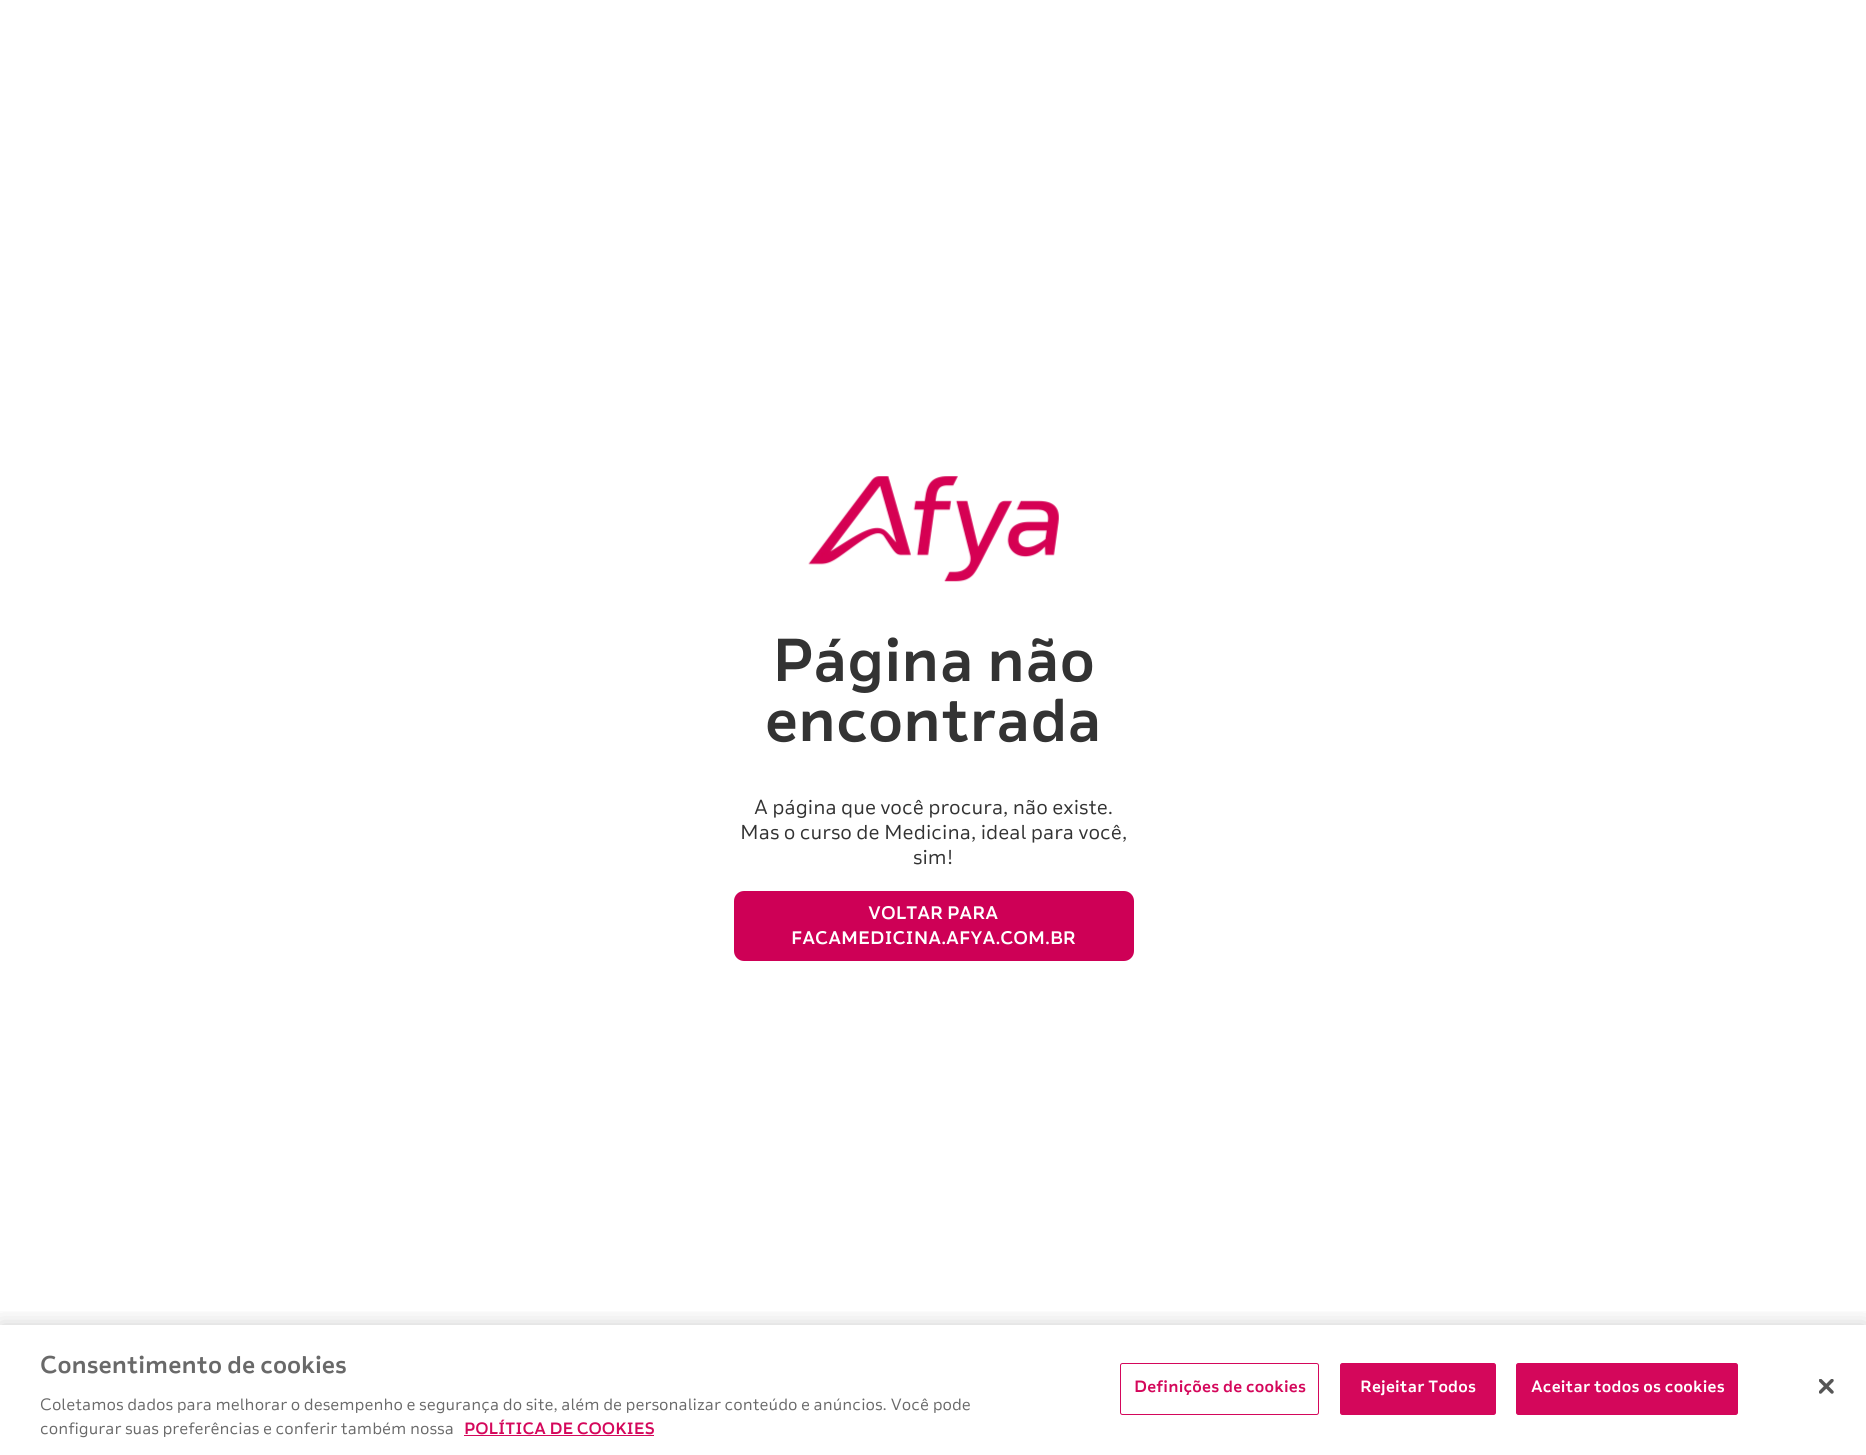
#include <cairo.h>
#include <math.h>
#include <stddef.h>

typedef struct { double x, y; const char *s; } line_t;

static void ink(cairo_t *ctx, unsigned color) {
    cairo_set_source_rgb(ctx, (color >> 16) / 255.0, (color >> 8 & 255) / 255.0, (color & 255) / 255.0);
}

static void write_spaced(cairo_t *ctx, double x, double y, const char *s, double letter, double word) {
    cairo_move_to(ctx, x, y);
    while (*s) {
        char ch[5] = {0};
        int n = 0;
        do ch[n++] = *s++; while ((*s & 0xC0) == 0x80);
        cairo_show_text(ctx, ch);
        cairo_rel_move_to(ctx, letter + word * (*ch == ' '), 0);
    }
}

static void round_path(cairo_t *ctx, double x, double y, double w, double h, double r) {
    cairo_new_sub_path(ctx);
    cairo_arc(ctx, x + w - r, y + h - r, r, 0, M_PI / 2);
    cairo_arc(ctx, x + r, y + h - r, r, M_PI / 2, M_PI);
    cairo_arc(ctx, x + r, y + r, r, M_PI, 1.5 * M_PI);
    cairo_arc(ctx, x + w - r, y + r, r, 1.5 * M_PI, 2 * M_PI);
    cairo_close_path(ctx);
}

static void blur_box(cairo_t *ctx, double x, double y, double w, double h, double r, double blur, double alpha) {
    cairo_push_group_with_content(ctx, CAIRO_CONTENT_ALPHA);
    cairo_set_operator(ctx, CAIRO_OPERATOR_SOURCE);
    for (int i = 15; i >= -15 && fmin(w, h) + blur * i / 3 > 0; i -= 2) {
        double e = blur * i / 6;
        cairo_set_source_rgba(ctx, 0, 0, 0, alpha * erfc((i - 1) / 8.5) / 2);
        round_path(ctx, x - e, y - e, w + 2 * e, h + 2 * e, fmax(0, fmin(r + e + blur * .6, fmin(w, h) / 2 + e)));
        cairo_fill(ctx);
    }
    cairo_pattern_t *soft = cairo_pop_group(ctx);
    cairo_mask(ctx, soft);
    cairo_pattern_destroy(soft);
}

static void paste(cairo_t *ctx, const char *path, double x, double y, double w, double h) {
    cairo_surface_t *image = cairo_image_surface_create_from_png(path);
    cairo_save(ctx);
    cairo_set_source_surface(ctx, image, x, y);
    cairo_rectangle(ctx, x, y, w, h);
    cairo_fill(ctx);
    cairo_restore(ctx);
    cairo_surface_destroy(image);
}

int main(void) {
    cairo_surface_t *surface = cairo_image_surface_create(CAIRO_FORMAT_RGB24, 1866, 1455);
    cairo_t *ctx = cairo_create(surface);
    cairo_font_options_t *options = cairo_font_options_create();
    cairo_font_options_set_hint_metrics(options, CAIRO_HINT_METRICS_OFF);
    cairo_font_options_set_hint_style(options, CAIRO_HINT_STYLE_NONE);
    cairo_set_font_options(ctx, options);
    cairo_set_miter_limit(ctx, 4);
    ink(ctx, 0xFFFFFF);
    cairo_paint(ctx);
    paste(ctx, "media/1.png", 808, 476, 251, 106);
    cairo_select_font_face(ctx, "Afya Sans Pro", CAIRO_FONT_SLANT_NORMAL, CAIRO_FONT_WEIGHT_BOLD);
    cairo_set_font_size(ctx, 60);
    ink(ctx, 0x333333);
    cairo_move_to(ctx, 772, 681);
    cairo_show_text(ctx, "Página não");
    cairo_move_to(ctx, 765, 741);
    cairo_show_text(ctx, "encontrada");
    cairo_select_font_face(ctx, "Afya Sans Pro", CAIRO_FONT_SLANT_NORMAL, CAIRO_FONT_WEIGHT_NORMAL);
    cairo_set_font_size(ctx, 20);
    {
        static const line_t items[] = {
            {754, 814, "A página que você procura, não existe."},
            {740, 839, "Mas o curso de Medicina, ideal para você,"},
            {913, 864, "sim!"},
        };
        for (size_t i = 0; i < sizeof items / sizeof *items; i++) {
            cairo_move_to(ctx, items[i].x, items[i].y);
            cairo_show_text(ctx, items[i].s);
        }
    }
    ink(ctx, 0xCE0056);
    round_path(ctx, 734, 891, 400, 70, 10);
    cairo_fill(ctx);
    cairo_select_font_face(ctx, "Afya Sans Pro", CAIRO_FONT_SLANT_NORMAL, CAIRO_FONT_WEIGHT_BOLD);
    cairo_set_font_size(ctx, 18);
    ink(ctx, 0xFFFFFF);
    cairo_move_to(ctx, 868, 919);
    cairo_show_text(ctx, "VOLTAR PARA");
    cairo_move_to(ctx, 791, 944);
    cairo_show_text(ctx, "FACAMEDICINA.AFYA.COM.BR");
    cairo_save(ctx);
    cairo_rectangle(ctx, 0, 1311, 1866, 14);
    cairo_clip(ctx);
    ink(ctx, 0x000000);
    blur_box(ctx, 0, 1325, 1866, 130, 0, 11, 0.2);
    cairo_restore(ctx);
    cairo_set_font_size(ctx, 24);
    ink(ctx, 0x696969);
    cairo_move_to(ctx, 40, 1373);
    cairo_show_text(ctx, "Consentimento de cookies");
    cairo_select_font_face(ctx, "Afya Sans Pro", CAIRO_FONT_SLANT_NORMAL, CAIRO_FONT_WEIGHT_NORMAL);
    cairo_set_font_size(ctx, 16.25);
    cairo_move_to(ctx, 40, 1410);
    cairo_show_text(ctx, "Coletamos dados para melhorar o desempenho e segurança do site, além de personalizar conteúdo e anúncios. Você pode");
    cairo_move_to(ctx, 40, 1434);
    cairo_show_text(ctx, "configurar suas preferências e conferir também nossa");
    cairo_select_font_face(ctx, "Afya Sans Pro", CAIRO_FONT_SLANT_NORMAL, CAIRO_FONT_WEIGHT_BOLD);
    ink(ctx, 0xD4075B);
    cairo_move_to(ctx, 464, 1434);
    cairo_show_text(ctx, "POLÍTICA DE COOKIES");
    cairo_rectangle(ctx, 464, 1435, 190, 1);
    cairo_fill(ctx);
    round_path(ctx, 1120.5, 1363.5, 198, 51, 2);
    cairo_set_line_width(ctx, 1);
    cairo_stroke(ctx);
    write_spaced(ctx, 1134, 1392, "Definições de cookies", 0.2, 0);
    round_path(ctx, 1340.5, 1363.5, 155, 51, 2);
    cairo_fill_preserve(ctx);
    cairo_stroke(ctx);
    ink(ctx, 0xFFFFFF);
    write_spaced(ctx, 1360, 1392, "Rejeitar Todos", 0.2, 0);
    ink(ctx, 0xD4075B);
    round_path(ctx, 1516.5, 1363.5, 221, 51, 2);
    cairo_fill_preserve(ctx);
    cairo_stroke(ctx);
    ink(ctx, 0xFFFFFF);
    write_spaced(ctx, 1531, 1392, "Aceitar todos os cookies", 0.2, 0);
    paste(ctx, "media/2.png", 1819, 1379, 15, 15);
    cairo_surface_write_to_png(surface, "image.png");
    cairo_font_options_destroy(options);
    cairo_destroy(ctx);
    cairo_surface_destroy(surface);
    return 0;
}
